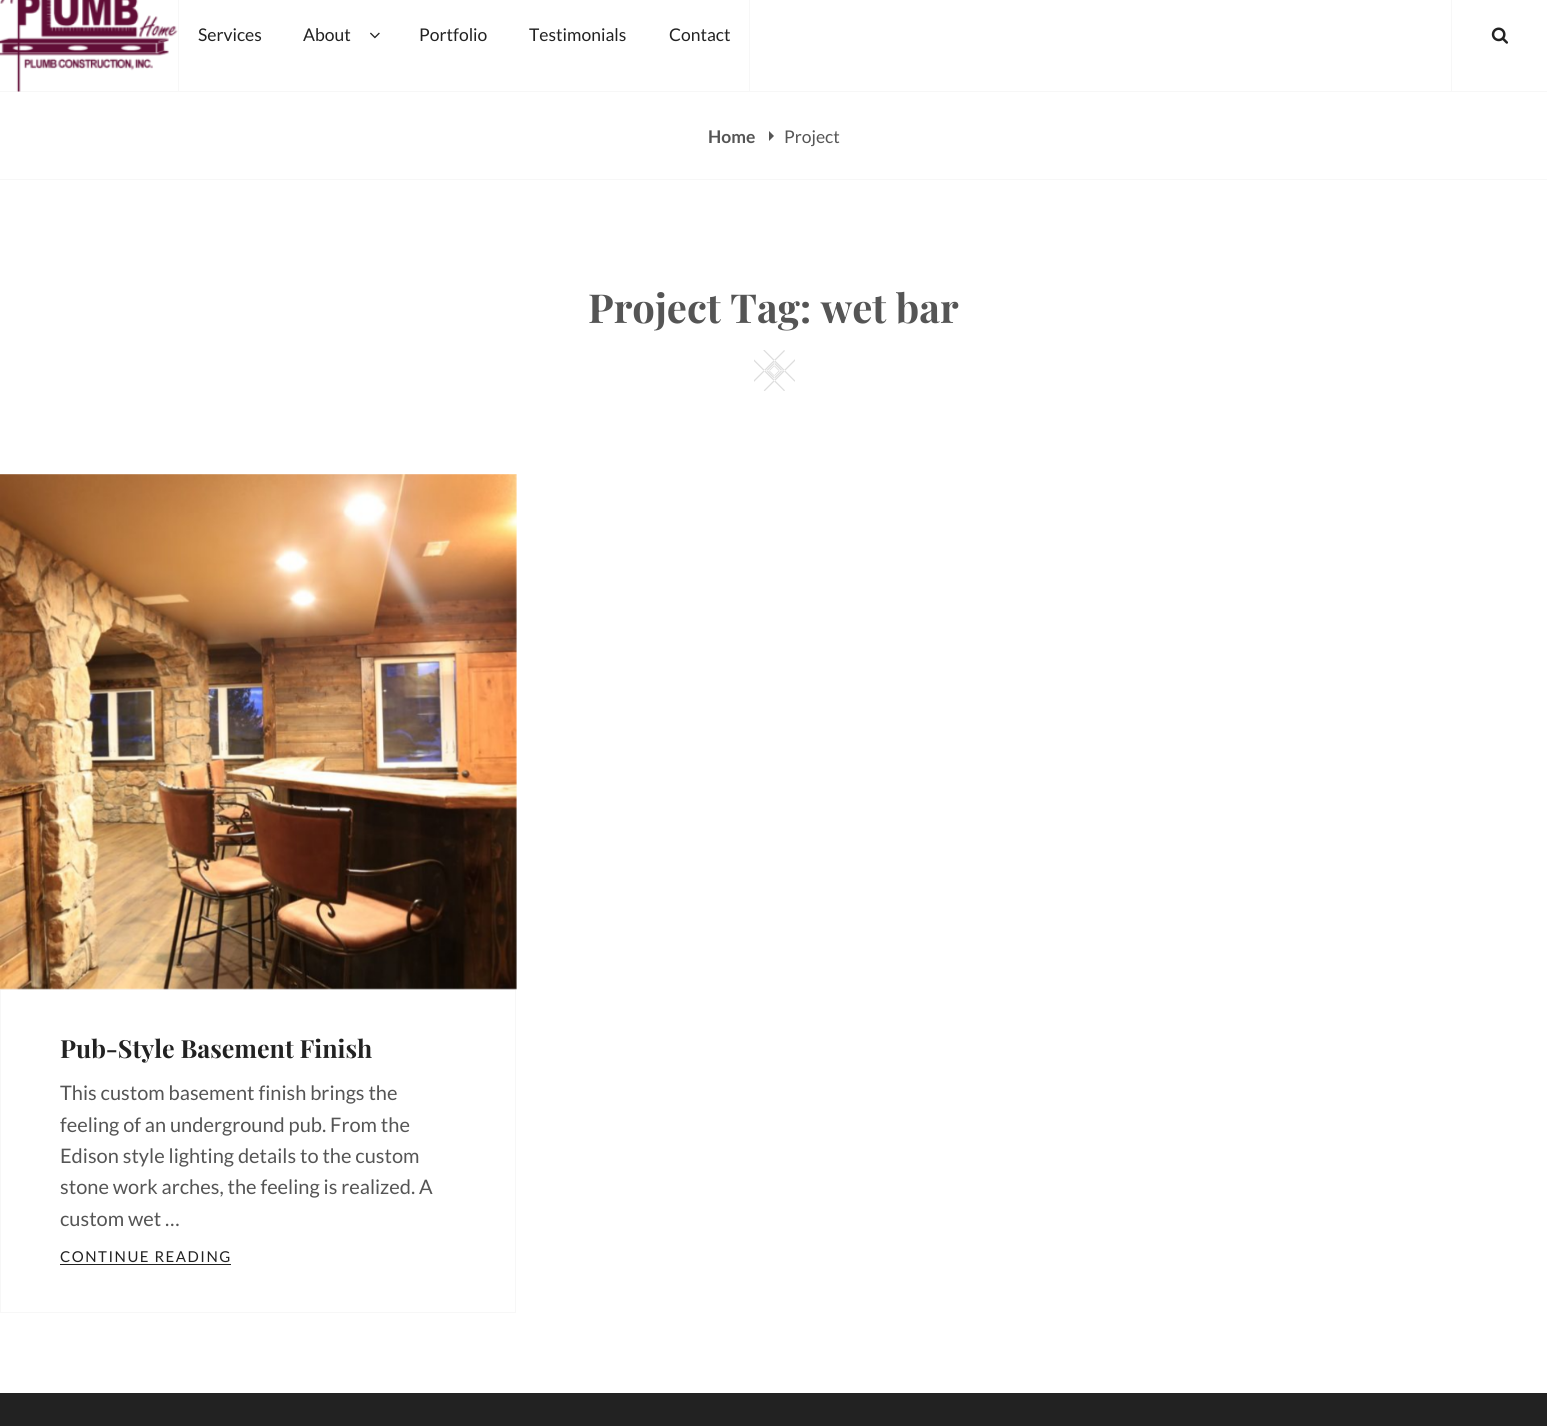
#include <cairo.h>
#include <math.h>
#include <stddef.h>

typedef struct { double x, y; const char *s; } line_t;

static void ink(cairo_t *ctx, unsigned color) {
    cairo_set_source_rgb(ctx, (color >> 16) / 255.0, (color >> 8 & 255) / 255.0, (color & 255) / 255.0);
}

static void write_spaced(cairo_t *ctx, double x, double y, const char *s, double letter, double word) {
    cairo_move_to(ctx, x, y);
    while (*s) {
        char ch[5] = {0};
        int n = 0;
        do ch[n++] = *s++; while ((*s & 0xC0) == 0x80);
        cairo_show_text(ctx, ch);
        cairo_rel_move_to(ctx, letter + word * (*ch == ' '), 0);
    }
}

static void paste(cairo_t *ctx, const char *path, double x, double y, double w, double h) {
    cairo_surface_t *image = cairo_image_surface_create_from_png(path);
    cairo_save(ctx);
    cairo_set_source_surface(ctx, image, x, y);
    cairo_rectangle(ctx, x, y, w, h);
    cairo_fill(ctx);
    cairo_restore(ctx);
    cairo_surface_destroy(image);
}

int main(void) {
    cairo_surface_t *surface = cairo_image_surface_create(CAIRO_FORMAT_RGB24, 1547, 1426);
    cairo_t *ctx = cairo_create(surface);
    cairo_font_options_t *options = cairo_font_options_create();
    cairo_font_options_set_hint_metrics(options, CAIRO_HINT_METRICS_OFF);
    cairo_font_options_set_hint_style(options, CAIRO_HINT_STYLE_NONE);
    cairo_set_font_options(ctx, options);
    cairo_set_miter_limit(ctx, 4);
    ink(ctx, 0xFFFFFF);
    cairo_paint(ctx);
    ink(ctx, 0xF7F7F7);
    cairo_rectangle(ctx, 0, 91, 1547, 1);
    cairo_fill(ctx);
    paste(ctx, "media/1.png", 0, 0, 178, 92);
    cairo_rectangle(ctx, 749, 0, 1, 91);
    cairo_fill(ctx);
    cairo_rectangle(ctx, 178, 0, 1, 91);
    cairo_fill(ctx);
    cairo_select_font_face(ctx, "Lato", CAIRO_FONT_SLANT_NORMAL, CAIRO_FONT_WEIGHT_NORMAL);
    cairo_set_font_size(ctx, 17.5);
    ink(ctx, 0x222222);
    cairo_move_to(ctx, 198, 41);
    cairo_show_text(ctx, "Services");
    cairo_move_to(ctx, 303, 41);
    cairo_show_text(ctx, "About");
    paste(ctx, "media/2.png", 370, 32, 10, 7);
    {
        static const line_t items[] = {
            {419, 41, "Portfolio"},
            {529, 41, "Testimonials"},
            {669, 41, "Contact"},
        };
        for (size_t i = 0; i < sizeof items / sizeof *items; i++) {
            cairo_move_to(ctx, items[i].x, items[i].y);
            cairo_show_text(ctx, items[i].s);
        }
    }
    ink(ctx, 0xF7F7F7);
    cairo_rectangle(ctx, 1451, 0, 1, 91);
    cairo_fill(ctx);
    paste(ctx, "media/3.png", 1491, 27, 17, 17);
    cairo_rectangle(ctx, 0, 179, 1547, 1);
    cairo_fill(ctx);
    cairo_select_font_face(ctx, "Lato", CAIRO_FONT_SLANT_NORMAL, CAIRO_FONT_WEIGHT_BOLD);
    ink(ctx, 0x555555);
    cairo_move_to(ctx, 708, 143);
    cairo_show_text(ctx, "Home");
    cairo_new_path(ctx);
    cairo_move_to(ctx, 769, 141);
    cairo_line_to(ctx, 769, 131);
    cairo_line_to(ctx, 774, 136);
    cairo_close_path(ctx);
    cairo_fill(ctx);
    cairo_select_font_face(ctx, "Lato", CAIRO_FONT_SLANT_NORMAL, CAIRO_FONT_WEIGHT_NORMAL);
    cairo_move_to(ctx, 784, 143);
    cairo_show_text(ctx, "Project");
    cairo_select_font_face(ctx, "Playfair Display", CAIRO_FONT_SLANT_NORMAL, CAIRO_FONT_WEIGHT_BOLD);
    cairo_set_font_size(ctx, 40);
    cairo_move_to(ctx, 588, 323);
    cairo_show_text(ctx, "Project Tag: wet bar");
    paste(ctx, "media/4.png", 754, 350, 41, 41);
    cairo_rectangle(ctx, 0.5, 989.5, 515, 323);
    ink(ctx, 0xF7F7F7);
    cairo_set_line_width(ctx, 1);
    cairo_stroke(ctx);
    paste(ctx, "media/5.png", 0, 474, 517, 516);
    cairo_set_font_size(ctx, 25);
    ink(ctx, 0x222222);
    cairo_move_to(ctx, 60, 1058);
    cairo_show_text(ctx, "Pub-Style Basement Finish");
    cairo_select_font_face(ctx, "Lato", CAIRO_FONT_SLANT_NORMAL, CAIRO_FONT_WEIGHT_NORMAL);
    cairo_set_font_size(ctx, 20);
    ink(ctx, 0x555555);
    {
        static const line_t items[] = {
            {60, 1100, "This custom basement finish brings the"},
            {60, 1132, "feeling of an underground pub. From the"},
            {60, 1163, "Edison style lighting details to the custom"},
            {60, 1194, "stone work arches, the feeling is realized. A"},
            {60, 1226, "custom wet …"},
        };
        for (size_t i = 0; i < sizeof items / sizeof *items; i++) {
            cairo_move_to(ctx, items[i].x, items[i].y);
            cairo_show_text(ctx, items[i].s);
        }
    }
    cairo_set_font_size(ctx, 15);
    ink(ctx, 0x222222);
    write_spaced(ctx, 60, 1262, "CONTINUE READING", 1.5, 0);
    cairo_rectangle(ctx, 60, 1264, 171, 1);
    cairo_fill(ctx);
    cairo_rectangle(ctx, 0, 1393, 1547, 33);
    cairo_fill(ctx);
    cairo_surface_write_to_png(surface, "image.png");
    cairo_font_options_destroy(options);
    cairo_destroy(ctx);
    cairo_surface_destroy(surface);
    return 0;
}
